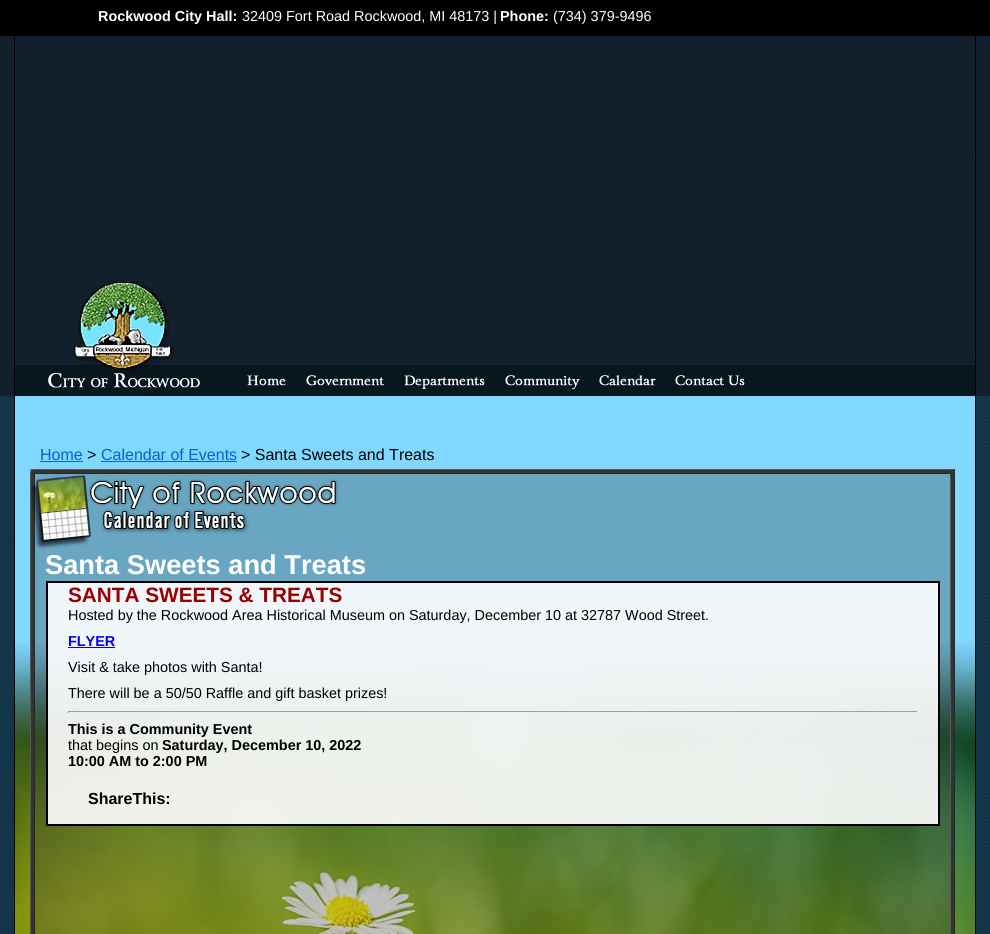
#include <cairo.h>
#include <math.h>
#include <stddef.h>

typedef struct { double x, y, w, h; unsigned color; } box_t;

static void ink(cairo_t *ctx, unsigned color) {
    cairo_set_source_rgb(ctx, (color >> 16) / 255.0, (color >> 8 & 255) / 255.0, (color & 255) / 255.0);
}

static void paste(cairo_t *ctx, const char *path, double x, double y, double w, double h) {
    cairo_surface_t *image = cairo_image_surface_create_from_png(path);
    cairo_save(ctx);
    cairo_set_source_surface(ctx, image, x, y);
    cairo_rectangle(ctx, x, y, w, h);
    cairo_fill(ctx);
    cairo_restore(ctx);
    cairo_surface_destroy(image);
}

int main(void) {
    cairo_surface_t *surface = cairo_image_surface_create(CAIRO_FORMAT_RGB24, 990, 934);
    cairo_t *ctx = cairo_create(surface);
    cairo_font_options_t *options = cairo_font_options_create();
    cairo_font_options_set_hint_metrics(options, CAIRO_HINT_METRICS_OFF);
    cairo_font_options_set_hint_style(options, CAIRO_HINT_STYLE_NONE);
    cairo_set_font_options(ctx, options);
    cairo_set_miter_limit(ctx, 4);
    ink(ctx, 0xFFFFFF);
    cairo_paint(ctx);
    paste(ctx, "media/1.png", 0, 396, 990, 538);
    ink(ctx, 0x000000);
    cairo_rectangle(ctx, 0, 0, 990, 36);
    cairo_fill(ctx);
    cairo_select_font_face(ctx, "Liberation Sans", CAIRO_FONT_SLANT_NORMAL, CAIRO_FONT_WEIGHT_BOLD);
    cairo_set_font_size(ctx, 14.4);
    ink(ctx, 0xFFFFFF);
    cairo_move_to(ctx, 98, 21);
    cairo_show_text(ctx, "Rockwood City Hall:");
    cairo_select_font_face(ctx, "Liberation Sans", CAIRO_FONT_SLANT_NORMAL, CAIRO_FONT_WEIGHT_NORMAL);
    cairo_move_to(ctx, 242, 21);
    cairo_show_text(ctx, "32409 Fort Road Rockwood, MI 48173 |");
    cairo_select_font_face(ctx, "Liberation Sans", CAIRO_FONT_SLANT_NORMAL, CAIRO_FONT_WEIGHT_BOLD);
    cairo_move_to(ctx, 500, 21);
    cairo_show_text(ctx, "Phone:");
    cairo_select_font_face(ctx, "Liberation Sans", CAIRO_FONT_SLANT_NORMAL, CAIRO_FONT_WEIGHT_NORMAL);
    cairo_move_to(ctx, 553, 21);
    cairo_show_text(ctx, "(734) 379-9496");
    paste(ctx, "media/2.png", 0, 36, 990, 360);
    ink(ctx, 0x000000);
    cairo_rectangle(ctx, 975, 36, 1, 898);
    cairo_fill(ctx);
    cairo_rectangle(ctx, 14, 36, 1, 898);
    cairo_fill(ctx);
    paste(ctx, "media/3.png", 15, 280, 960, 116);
    ink(ctx, 0x80D8FF);
    cairo_rectangle(ctx, 15, 396, 960, 247);
    cairo_fill(ctx);
    paste(ctx, "media/4.png", 15, 643, 960, 291);
    cairo_set_font_size(ctx, 16);
    ink(ctx, 0x0066CC);
    cairo_move_to(ctx, 40, 460);
    cairo_show_text(ctx, "Home");
    cairo_rectangle(ctx, 40, 461, 43, 1);
    cairo_fill(ctx);
    ink(ctx, 0x000000);
    cairo_move_to(ctx, 87, 460);
    cairo_show_text(ctx, ">");
    ink(ctx, 0x0066CC);
    cairo_move_to(ctx, 101, 460);
    cairo_show_text(ctx, "Calendar of Events");
    cairo_rectangle(ctx, 101, 461, 136, 1);
    cairo_fill(ctx);
    ink(ctx, 0x000000);
    cairo_move_to(ctx, 241, 460);
    cairo_show_text(ctx, "> Santa Sweets and Treats");
    paste(ctx, "media/5.png", 30, 474, 925, 460);
    paste(ctx, "media/6.png", 30, 469, 925, 80);
    cairo_select_font_face(ctx, "Liberation Sans", CAIRO_FONT_SLANT_NORMAL, CAIRO_FONT_WEIGHT_BOLD);
    cairo_set_font_size(ctx, 27.25);
    ink(ctx, 0xFFFFFF);
    cairo_move_to(ctx, 45, 574);
    cairo_show_text(ctx, "Santa Sweets and Treats");
    cairo_set_source_rgba(ctx, 1, 1, 1, 0.9);
    cairo_rectangle(ctx, 47, 582, 892, 243);
    cairo_fill_preserve(ctx);
    ink(ctx, 0x000000);
    cairo_stroke(ctx);
    cairo_set_font_size(ctx, 20.75);
    ink(ctx, 0x990000);
    cairo_move_to(ctx, 68, 602);
    cairo_show_text(ctx, "SANTA SWEETS & TREATS");
    cairo_select_font_face(ctx, "Liberation Sans", CAIRO_FONT_SLANT_NORMAL, CAIRO_FONT_WEIGHT_NORMAL);
    cairo_set_font_size(ctx, 14.4);
    ink(ctx, 0x000000);
    cairo_move_to(ctx, 68, 620);
    cairo_show_text(ctx, "Hosted by the Rockwood Area Historical Museum on Saturday, December 10 at 32787 Wood Street.");
    cairo_select_font_face(ctx, "Liberation Sans", CAIRO_FONT_SLANT_NORMAL, CAIRO_FONT_WEIGHT_BOLD);
    ink(ctx, 0x0000EE);
    cairo_move_to(ctx, 68, 646);
    cairo_show_text(ctx, "FLYER");
    cairo_rectangle(ctx, 68, 647, 47, 1);
    cairo_fill(ctx);
    cairo_select_font_face(ctx, "Liberation Sans", CAIRO_FONT_SLANT_NORMAL, CAIRO_FONT_WEIGHT_NORMAL);
    ink(ctx, 0x000000);
    cairo_move_to(ctx, 68, 672);
    cairo_show_text(ctx, "Visit & take photos with Santa!");
    cairo_move_to(ctx, 68, 698);
    cairo_show_text(ctx, "There will be a 50/50 Raffle and gift basket prizes!");
    {
        static const box_t items[] = {
            {68, 711, 850, 1, 0x9F9F9F},
            {917, 711, 1, 2, 0xEEEEEE},
            {68, 712, 850, 1, 0xEEEEEE},
            {68, 711, 1, 2, 0x9F9F9F},
        };
        for (size_t i = 0; i < sizeof items / sizeof *items; i++) {
            ink(ctx, items[i].color);
            cairo_rectangle(ctx, items[i].x, items[i].y, items[i].w, items[i].h);
            cairo_fill(ctx);
        }
    }
    cairo_select_font_face(ctx, "Liberation Sans", CAIRO_FONT_SLANT_NORMAL, CAIRO_FONT_WEIGHT_BOLD);
    ink(ctx, 0x000000);
    cairo_move_to(ctx, 68, 734);
    cairo_show_text(ctx, "This is a Community Event");
    cairo_select_font_face(ctx, "Liberation Sans", CAIRO_FONT_SLANT_NORMAL, CAIRO_FONT_WEIGHT_NORMAL);
    cairo_move_to(ctx, 68, 750);
    cairo_show_text(ctx, "that begins on");
    cairo_select_font_face(ctx, "Liberation Sans", CAIRO_FONT_SLANT_NORMAL, CAIRO_FONT_WEIGHT_BOLD);
    cairo_move_to(ctx, 162, 750);
    cairo_show_text(ctx, "Saturday, December 10, 2022");
    cairo_move_to(ctx, 68, 766);
    cairo_show_text(ctx, "10:00 AM to 2:00 PM");
    cairo_set_font_size(ctx, 16);
    cairo_move_to(ctx, 88, 804);
    cairo_show_text(ctx, "ShareThis:");
    cairo_surface_write_to_png(surface, "image.png");
    cairo_font_options_destroy(options);
    cairo_destroy(ctx);
    cairo_surface_destroy(surface);
    return 0;
}
